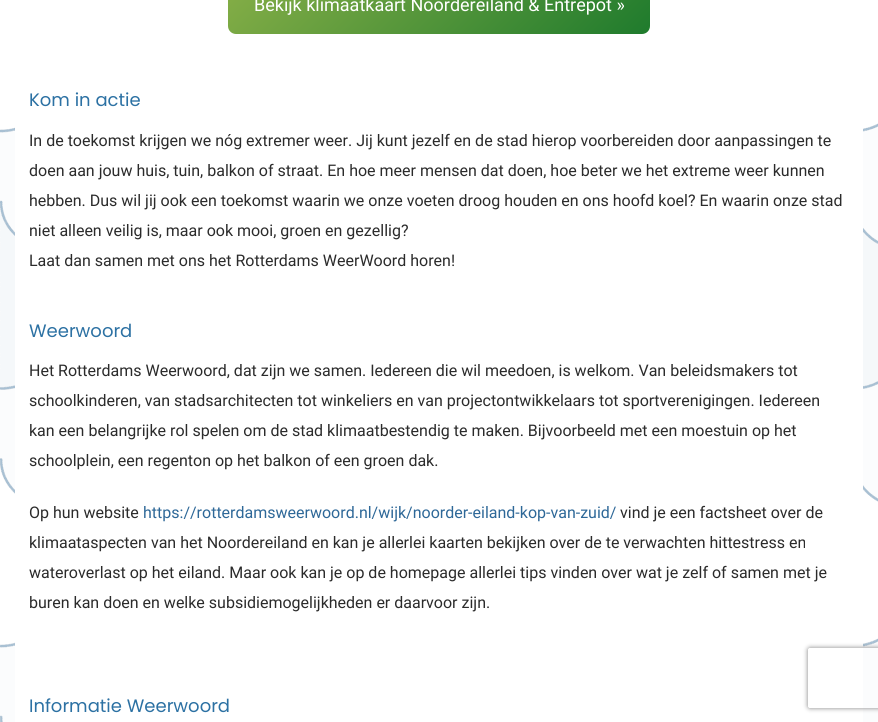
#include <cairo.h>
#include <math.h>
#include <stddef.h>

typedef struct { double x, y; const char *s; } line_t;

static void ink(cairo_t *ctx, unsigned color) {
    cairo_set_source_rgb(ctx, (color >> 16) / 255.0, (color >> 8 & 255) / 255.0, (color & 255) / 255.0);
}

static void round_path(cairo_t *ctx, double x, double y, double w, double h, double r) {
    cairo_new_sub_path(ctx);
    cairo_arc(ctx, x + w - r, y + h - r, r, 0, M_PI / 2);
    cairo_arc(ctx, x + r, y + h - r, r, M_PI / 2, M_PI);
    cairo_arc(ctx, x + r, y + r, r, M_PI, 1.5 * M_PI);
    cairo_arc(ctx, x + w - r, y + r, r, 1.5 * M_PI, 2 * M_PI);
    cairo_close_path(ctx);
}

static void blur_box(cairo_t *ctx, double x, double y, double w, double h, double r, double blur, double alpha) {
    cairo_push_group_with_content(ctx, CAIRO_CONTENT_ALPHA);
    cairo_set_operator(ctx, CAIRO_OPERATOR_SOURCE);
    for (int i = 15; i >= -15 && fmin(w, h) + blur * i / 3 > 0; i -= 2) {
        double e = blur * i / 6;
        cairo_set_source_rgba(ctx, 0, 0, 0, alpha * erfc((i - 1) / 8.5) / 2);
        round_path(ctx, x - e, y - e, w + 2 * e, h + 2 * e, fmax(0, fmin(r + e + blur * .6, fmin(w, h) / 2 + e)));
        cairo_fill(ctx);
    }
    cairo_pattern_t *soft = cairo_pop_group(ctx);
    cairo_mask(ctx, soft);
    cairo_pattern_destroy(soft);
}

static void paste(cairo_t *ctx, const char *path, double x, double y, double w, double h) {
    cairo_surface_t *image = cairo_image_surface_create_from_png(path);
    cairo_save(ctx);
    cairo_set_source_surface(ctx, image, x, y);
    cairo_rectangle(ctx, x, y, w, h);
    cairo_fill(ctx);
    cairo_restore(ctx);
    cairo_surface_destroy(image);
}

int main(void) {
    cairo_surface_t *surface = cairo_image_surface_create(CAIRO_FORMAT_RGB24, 878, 722);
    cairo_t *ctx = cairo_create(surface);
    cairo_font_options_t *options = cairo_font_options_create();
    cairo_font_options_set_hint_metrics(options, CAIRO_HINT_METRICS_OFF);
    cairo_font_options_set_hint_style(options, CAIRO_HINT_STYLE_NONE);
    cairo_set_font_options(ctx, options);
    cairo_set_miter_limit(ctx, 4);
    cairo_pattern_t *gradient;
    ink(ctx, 0xFFFFFF);
    cairo_paint(ctx);
    paste(ctx, "media/1.png", 0, 82, 878, 640);
    ink(ctx, 0xFFFFFF);
    cairo_rectangle(ctx, 15, 82, 848, 640);
    cairo_fill(ctx);
    gradient = cairo_pattern_create_linear(319, -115, 559, 125);
    cairo_pattern_add_color_stop_rgba(gradient, 0, 0.529, 0.686, 0.278, 1);
    cairo_pattern_add_color_stop_rgba(gradient, 1, 0.122, 0.482, 0.176, 1);
    cairo_set_source(ctx, gradient);
    cairo_pattern_destroy(gradient);
    round_path(ctx, 228, -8, 422, 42, 8);
    cairo_fill(ctx);
    cairo_select_font_face(ctx, "Roboto", CAIRO_FONT_SLANT_NORMAL, CAIRO_FONT_WEIGHT_NORMAL);
    cairo_set_font_size(ctx, 18);
    ink(ctx, 0xFFFFFF);
    cairo_move_to(ctx, 254, 11);
    cairo_show_text(ctx, "Bekijk klimaatkaart Noordereiland & Entrepot »");
    cairo_select_font_face(ctx, "Poppins", CAIRO_FONT_SLANT_NORMAL, CAIRO_FONT_WEIGHT_NORMAL);
    ink(ctx, 0x2C71A3);
    cairo_move_to(ctx, 29, 106);
    cairo_show_text(ctx, "Kom in actie");
    cairo_select_font_face(ctx, "Roboto", CAIRO_FONT_SLANT_NORMAL, CAIRO_FONT_WEIGHT_NORMAL);
    cairo_set_font_size(ctx, 16);
    ink(ctx, 0x2B2B2B);
    {
        static const line_t items[] = {
            {29, 146, "In de toekomst krijgen we nóg extremer weer. Jij kunt jezelf en de stad hierop voorbereiden door aanpassingen te"},
            {29, 176, "doen aan jouw huis, tuin, balkon of straat. En hoe meer mensen dat doen, hoe beter we het extreme weer kunnen"},
            {29, 206, "hebben. Dus wil jij ook een toekomst waarin we onze voeten droog houden en ons hoofd koel? En waarin onze stad"},
            {29, 236, "niet alleen veilig is, maar ook mooi, groen en gezellig?"},
            {29, 266, "Laat dan samen met ons het Rotterdams WeerWoord horen!"},
        };
        for (size_t i = 0; i < sizeof items / sizeof *items; i++) {
            cairo_move_to(ctx, items[i].x, items[i].y);
            cairo_show_text(ctx, items[i].s);
        }
    }
    cairo_select_font_face(ctx, "Poppins", CAIRO_FONT_SLANT_NORMAL, CAIRO_FONT_WEIGHT_NORMAL);
    cairo_set_font_size(ctx, 18);
    ink(ctx, 0x2C71A3);
    cairo_move_to(ctx, 29, 337);
    cairo_show_text(ctx, "Weerwoord");
    cairo_select_font_face(ctx, "Roboto", CAIRO_FONT_SLANT_NORMAL, CAIRO_FONT_WEIGHT_NORMAL);
    cairo_set_font_size(ctx, 16);
    ink(ctx, 0x2B2B2B);
    {
        static const line_t items[] = {
            {29, 376, "Het Rotterdams Weerwoord, dat zijn we samen. Iedereen die wil meedoen, is welkom. Van beleidsmakers tot"},
            {29, 406, "schoolkinderen, van stadsarchitecten tot winkeliers en van projectontwikkelaars tot sportverenigingen. Iedereen"},
            {29, 436, "kan een belangrijke rol spelen om de stad klimaatbestendig te maken. Bijvoorbeeld met een moestuin op het"},
            {29, 466, "schoolplein, een regenton op het balkon of een groen dak."},
            {29, 518, "Op hun website"},
        };
        for (size_t i = 0; i < sizeof items / sizeof *items; i++) {
            cairo_move_to(ctx, items[i].x, items[i].y);
            cairo_show_text(ctx, items[i].s);
        }
    }
    ink(ctx, 0x2E6898);
    cairo_move_to(ctx, 143, 518);
    cairo_show_text(ctx, "https://rotterdamsweerwoord.nl/wijk/noorder-eiland-kop-van-zuid/");
    ink(ctx, 0x2B2B2B);
    {
        static const line_t items[] = {
            {620, 518, "vind je een factsheet over de"},
            {29, 548, "klimaataspecten van het Noordereiland en kan je allerlei kaarten bekijken over de te verwachten hittestress en"},
            {29, 578, "wateroverlast op het eiland. Maar ook kan je op de homepage allerlei tips vinden over wat je zelf of samen met je"},
            {29, 608, "buren kan doen en welke subsidiemogelijkheden er daarvoor zijn."},
        };
        for (size_t i = 0; i < sizeof items / sizeof *items; i++) {
            cairo_move_to(ctx, items[i].x, items[i].y);
            cairo_show_text(ctx, items[i].s);
        }
    }
    cairo_select_font_face(ctx, "Poppins", CAIRO_FONT_SLANT_NORMAL, CAIRO_FONT_WEIGHT_NORMAL);
    cairo_set_font_size(ctx, 18);
    ink(ctx, 0x2C71A3);
    cairo_move_to(ctx, 29, 712);
    cairo_show_text(ctx, "Informatie Weerwoord");
    cairo_save(ctx);
    cairo_set_fill_rule(ctx, CAIRO_FILL_RULE_EVEN_ODD);
    cairo_new_path(ctx);
    cairo_move_to(ctx, 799, 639);
    cairo_line_to(ctx, 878, 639);
    cairo_line_to(ctx, 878, 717);
    cairo_line_to(ctx, 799, 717);
    cairo_close_path(ctx);
    cairo_move_to(ctx, 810, 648);
    cairo_line_to(ctx, 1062, 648);
    cairo_curve_to(ctx, 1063, 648, 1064, 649, 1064, 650);
    cairo_line_to(ctx, 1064, 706);
    cairo_curve_to(ctx, 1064, 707, 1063, 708, 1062, 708);
    cairo_line_to(ctx, 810, 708);
    cairo_curve_to(ctx, 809, 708, 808, 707, 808, 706);
    cairo_line_to(ctx, 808, 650);
    cairo_curve_to(ctx, 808, 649, 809, 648, 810, 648);
    cairo_close_path(ctx);
    cairo_clip(ctx);
    ink(ctx, 0x808080);
    blur_box(ctx, 808, 648, 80, 60, 2, 2.5, 1);
    cairo_restore(ctx);
    cairo_surface_write_to_png(surface, "image.png");
    cairo_font_options_destroy(options);
    cairo_destroy(ctx);
    cairo_surface_destroy(surface);
    return 0;
}
